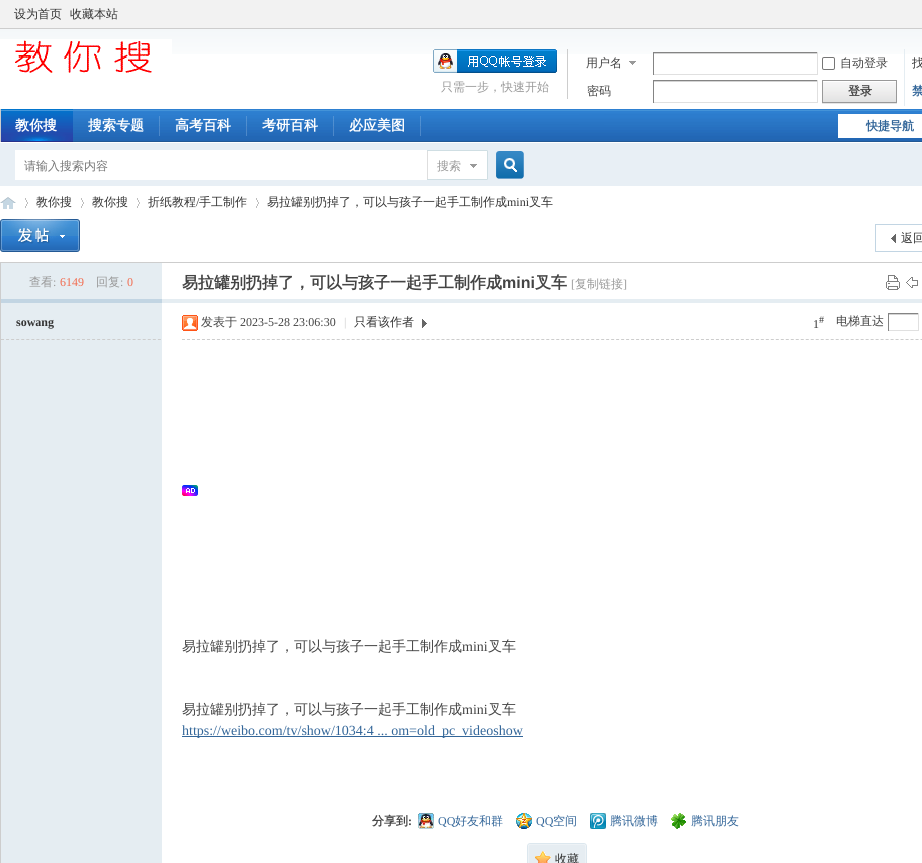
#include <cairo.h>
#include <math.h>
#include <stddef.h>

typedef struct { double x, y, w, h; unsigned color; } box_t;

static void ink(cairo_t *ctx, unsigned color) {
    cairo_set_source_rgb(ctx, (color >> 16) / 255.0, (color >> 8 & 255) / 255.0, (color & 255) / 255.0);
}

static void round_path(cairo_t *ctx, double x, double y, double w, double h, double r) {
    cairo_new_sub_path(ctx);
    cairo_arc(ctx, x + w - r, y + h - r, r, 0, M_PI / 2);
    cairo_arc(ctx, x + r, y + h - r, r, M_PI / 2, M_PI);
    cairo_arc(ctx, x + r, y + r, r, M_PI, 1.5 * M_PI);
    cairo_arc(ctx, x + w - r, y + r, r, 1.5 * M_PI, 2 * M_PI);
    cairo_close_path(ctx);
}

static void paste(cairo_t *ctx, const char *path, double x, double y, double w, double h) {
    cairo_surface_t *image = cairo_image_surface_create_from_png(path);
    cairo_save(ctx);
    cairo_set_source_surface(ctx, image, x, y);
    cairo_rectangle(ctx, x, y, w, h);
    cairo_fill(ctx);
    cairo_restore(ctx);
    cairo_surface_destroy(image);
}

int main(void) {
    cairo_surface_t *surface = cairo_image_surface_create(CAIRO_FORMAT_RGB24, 922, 863);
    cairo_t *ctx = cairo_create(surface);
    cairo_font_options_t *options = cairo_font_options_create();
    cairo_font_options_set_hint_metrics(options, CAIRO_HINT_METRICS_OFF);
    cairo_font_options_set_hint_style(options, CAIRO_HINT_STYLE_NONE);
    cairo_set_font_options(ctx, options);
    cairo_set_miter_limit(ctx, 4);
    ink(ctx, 0xFFFFFF);
    cairo_paint(ctx);
    paste(ctx, "media/1.png", 0, 29, 922, 25);
    ink(ctx, 0xF2F2F2);
    cairo_rectangle(ctx, 0, 0, 922, 28);
    cairo_fill(ctx);
    ink(ctx, 0xCDCDCD);
    cairo_rectangle(ctx, 0, 28, 922, 1);
    cairo_fill(ctx);
    cairo_select_font_face(ctx, "WenQuanYi Zen Hei Medium", CAIRO_FONT_SLANT_NORMAL, CAIRO_FONT_WEIGHT_NORMAL);
    cairo_set_font_size(ctx, 12);
    ink(ctx, 0x333333);
    cairo_move_to(ctx, 14, 18);
    cairo_show_text(ctx, "设为首页");
    cairo_move_to(ctx, 70, 18);
    cairo_show_text(ctx, "收藏本站");
    paste(ctx, "media/2.png", 0, 39, 172, 34);
    ink(ctx, 0xCDCDCD);
    cairo_rectangle(ctx, 567, 49, 1, 50);
    cairo_fill(ctx);
    paste(ctx, "media/3.png", 433, 49, 124, 24);
    ink(ctx, 0x999999);
    cairo_move_to(ctx, 441, 91);
    cairo_show_text(ctx, "只需一步，快速开始");
    paste(ctx, "media/4.png", 629, 61, 7, 4);
    ink(ctx, 0x444444);
    cairo_move_to(ctx, 586, 67);
    cairo_show_text(ctx, "用户名");
    {
        static const box_t items[] = {
            {653, 53, 165, 1, 0xD4D4D4},
            {653, 52, 165, 1, 0x848484},
            {817, 52, 1, 23, 0xE0E0E0},
            {653, 74, 165, 1, 0xE0E0E0},
            {653, 52, 1, 23, 0x848484},
        };
        for (size_t i = 0; i < sizeof items / sizeof *items; i++) {
            ink(ctx, items[i].color);
            cairo_rectangle(ctx, items[i].x, items[i].y, items[i].w, items[i].h);
            cairo_fill(ctx);
        }
    }
    round_path(ctx, 822.5, 57.5, 12, 12, 1.5);
    ink(ctx, 0x767676);
    cairo_set_line_width(ctx, 1);
    cairo_stroke(ctx);
    ink(ctx, 0x444444);
    cairo_move_to(ctx, 840, 67);
    cairo_show_text(ctx, "自动登录");
    ink(ctx, 0x333333);
    cairo_move_to(ctx, 912, 67);
    cairo_show_text(ctx, "找");
    ink(ctx, 0x444444);
    cairo_move_to(ctx, 587, 95);
    cairo_show_text(ctx, "密码");
    {
        static const box_t items[] = {
            {653, 81, 165, 1, 0xD4D4D4},
            {653, 80, 165, 1, 0x848484},
            {817, 80, 1, 23, 0xE0E0E0},
            {653, 102, 165, 1, 0xE0E0E0},
            {653, 80, 1, 23, 0x848484},
            {904, 49, 1, 57, 0xE5EDF2},
            {822, 103, 75, 1, 0xE5E5E5},
        };
        for (size_t i = 0; i < sizeof items / sizeof *items; i++) {
            ink(ctx, items[i].color);
            cairo_rectangle(ctx, items[i].x, items[i].y, items[i].w, items[i].h);
            cairo_fill(ctx);
        }
    }
    paste(ctx, "media/5.png", 823, 81, 73, 21);
    cairo_rectangle(ctx, 822.5, 80.5, 74, 22);
    ink(ctx, 0x999999);
    cairo_stroke(ctx);
    cairo_select_font_face(ctx, "WenQuanYi Zen Hei", CAIRO_FONT_SLANT_NORMAL, CAIRO_FONT_WEIGHT_BOLD);
    ink(ctx, 0x444444);
    cairo_move_to(ctx, 848, 95);
    cairo_show_text(ctx, "登录");
    ink(ctx, 0x336699);
    cairo_move_to(ctx, 912, 95);
    cairo_show_text(ctx, "禁");
    paste(ctx, "media/6.png", 73, 109, 849, 33);
    ink(ctx, 0xCDCDCD);
    cairo_rectangle(ctx, 0, 109, 1, 33);
    cairo_fill(ctx);
    paste(ctx, "media/7.png", 1, 109, 72, 33);
    cairo_set_font_size(ctx, 14);
    ink(ctx, 0xFFFFFF);
    cairo_move_to(ctx, 15, 130);
    cairo_show_text(ctx, "教你搜");
    paste(ctx, "media/8.png", 159, 116, 1, 20);
    cairo_move_to(ctx, 88, 130);
    cairo_show_text(ctx, "搜索专题");
    paste(ctx, "media/8.png", 246, 116, 1, 20);
    cairo_move_to(ctx, 175, 130);
    cairo_show_text(ctx, "高考百科");
    paste(ctx, "media/8.png", 333, 116, 1, 20);
    cairo_move_to(ctx, 262, 130);
    cairo_show_text(ctx, "考研百科");
    paste(ctx, "media/8.png", 420, 116, 1, 20);
    cairo_move_to(ctx, 349, 130);
    cairo_show_text(ctx, "必应美图");
    cairo_rectangle(ctx, 838, 114, 84, 24);
    cairo_fill(ctx);
    cairo_set_font_size(ctx, 12);
    ink(ctx, 0x336699);
    cairo_move_to(ctx, 866, 130);
    cairo_show_text(ctx, "快捷导航");
    ink(ctx, 0xE8EFF5);
    cairo_rectangle(ctx, 0, 143, 922, 43);
    cairo_fill(ctx);
    ink(ctx, 0xFFFFFF);
    cairo_rectangle(ctx, 15, 150, 412, 30);
    cairo_fill(ctx);
    paste(ctx, "media/9.png", 496, 151, 28, 28);
    cairo_select_font_face(ctx, "WenQuanYi Zen Hei Medium", CAIRO_FONT_SLANT_NORMAL, CAIRO_FONT_WEIGHT_NORMAL);
    ink(ctx, 0x757575);
    cairo_move_to(ctx, 24, 170);
    cairo_show_text(ctx, "请输入搜索内容");
    paste(ctx, "media/10.png", 427, 150, 61, 30);
    ink(ctx, 0x999999);
    cairo_move_to(ctx, 437, 170);
    cairo_show_text(ctx, "搜索");
    paste(ctx, "media/11.png", 0, 197, 16, 12);
    paste(ctx, "media/12.png", 25, 198, 3, 10);
    ink(ctx, 0x333333);
    cairo_move_to(ctx, 36, 206);
    cairo_show_text(ctx, "教你搜");
    paste(ctx, "media/12.png", 81, 198, 3, 10);
    cairo_move_to(ctx, 92, 206);
    cairo_show_text(ctx, "教你搜");
    paste(ctx, "media/12.png", 137, 198, 3, 10);
    cairo_move_to(ctx, 148, 206);
    cairo_show_text(ctx, "折纸教程");
    cairo_select_font_face(ctx, "Liberation Serif", CAIRO_FONT_SLANT_NORMAL, CAIRO_FONT_WEIGHT_NORMAL);
    cairo_move_to(ctx, 196, 206);
    cairo_show_text(ctx, "/");
    cairo_select_font_face(ctx, "WenQuanYi Zen Hei Medium", CAIRO_FONT_SLANT_NORMAL, CAIRO_FONT_WEIGHT_NORMAL);
    cairo_move_to(ctx, 199, 206);
    cairo_show_text(ctx, "手工制作");
    paste(ctx, "media/12.png", 256, 198, 3, 10);
    cairo_move_to(ctx, 267, 206);
    cairo_show_text(ctx, "易拉罐别扔掉了，可以与孩子一起手工制作成");
    cairo_select_font_face(ctx, "Liberation Serif", CAIRO_FONT_SLANT_NORMAL, CAIRO_FONT_WEIGHT_NORMAL);
    cairo_move_to(ctx, 507, 206);
    cairo_show_text(ctx, "mini");
    cairo_select_font_face(ctx, "WenQuanYi Zen Hei Medium", CAIRO_FONT_SLANT_NORMAL, CAIRO_FONT_WEIGHT_NORMAL);
    cairo_move_to(ctx, 529, 206);
    cairo_show_text(ctx, "叉车");
    paste(ctx, "media/13.png", 0, 219, 80, 33);
    paste(ctx, "media/14.png", 891, 234, 5, 9);
    cairo_rectangle(ctx, 875.5, 224.5, 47, 27);
    ink(ctx, 0xC2D5E3);
    cairo_stroke(ctx);
    ink(ctx, 0x333333);
    cairo_move_to(ctx, 901, 242);
    cairo_show_text(ctx, "返回");
    cairo_rectangle(ctx, 0.5, 262.5, 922, 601);
    ink(ctx, 0xCDCDCD);
    cairo_stroke(ctx);
    ink(ctx, 0xE5EDF2);
    cairo_rectangle(ctx, 1, 263, 161, 36);
    cairo_fill(ctx);
    ink(ctx, 0x999999);
    cairo_move_to(ctx, 29, 286);
    cairo_show_text(ctx, "查看");
    cairo_select_font_face(ctx, "Liberation Serif", CAIRO_FONT_SLANT_NORMAL, CAIRO_FONT_WEIGHT_NORMAL);
    cairo_move_to(ctx, 53, 286);
    cairo_show_text(ctx, ":");
    ink(ctx, 0xF26C4F);
    cairo_move_to(ctx, 60, 286);
    cairo_show_text(ctx, "6149");
    cairo_select_font_face(ctx, "WenQuanYi Zen Hei Medium", CAIRO_FONT_SLANT_NORMAL, CAIRO_FONT_WEIGHT_NORMAL);
    ink(ctx, 0x999999);
    cairo_move_to(ctx, 96, 286);
    cairo_show_text(ctx, "回复");
    cairo_select_font_face(ctx, "Liberation Serif", CAIRO_FONT_SLANT_NORMAL, CAIRO_FONT_WEIGHT_NORMAL);
    cairo_move_to(ctx, 120, 286);
    cairo_show_text(ctx, ":");
    ink(ctx, 0xF26C4F);
    cairo_move_to(ctx, 127, 286);
    cairo_show_text(ctx, "0");
    cairo_select_font_face(ctx, "WenQuanYi Zen Hei", CAIRO_FONT_SLANT_NORMAL, CAIRO_FONT_WEIGHT_BOLD);
    cairo_set_font_size(ctx, 16);
    ink(ctx, 0x444444);
    cairo_move_to(ctx, 182, 288);
    cairo_show_text(ctx, "易拉罐别扔掉了，可以与孩子一起手工制作成");
    cairo_select_font_face(ctx, "Liberation Sans", CAIRO_FONT_SLANT_NORMAL, CAIRO_FONT_WEIGHT_BOLD);
    cairo_move_to(ctx, 502, 288);
    cairo_show_text(ctx, "mini");
    cairo_select_font_face(ctx, "WenQuanYi Zen Hei", CAIRO_FONT_SLANT_NORMAL, CAIRO_FONT_WEIGHT_BOLD);
    cairo_move_to(ctx, 535, 288);
    cairo_show_text(ctx, "叉车");
    cairo_select_font_face(ctx, "Liberation Serif", CAIRO_FONT_SLANT_NORMAL, CAIRO_FONT_WEIGHT_NORMAL);
    cairo_set_font_size(ctx, 12);
    ink(ctx, 0x999999);
    cairo_move_to(ctx, 571, 288);
    cairo_show_text(ctx, "[");
    cairo_select_font_face(ctx, "WenQuanYi Zen Hei Medium", CAIRO_FONT_SLANT_NORMAL, CAIRO_FONT_WEIGHT_NORMAL);
    cairo_move_to(ctx, 575, 288);
    cairo_show_text(ctx, "复制链接");
    cairo_select_font_face(ctx, "Liberation Serif", CAIRO_FONT_SLANT_NORMAL, CAIRO_FONT_WEIGHT_NORMAL);
    cairo_move_to(ctx, 623, 288);
    cairo_show_text(ctx, "]");
    paste(ctx, "media/15.png", 886, 275, 14, 15);
    paste(ctx, "media/16.png", 906, 277, 12, 11);
    {
        static const box_t items[] = {
            {1, 299, 161, 4, 0xC2D5E3},
            {162, 299, 760, 4, 0xE5EDF2},
            {1, 303, 161, 560, 0xE5EDF2},
        };
        for (size_t i = 0; i < sizeof items / sizeof *items; i++) {
            ink(ctx, items[i].color);
            cairo_rectangle(ctx, items[i].x, items[i].y, items[i].w, items[i].h);
            cairo_fill(ctx);
        }
    }
    cairo_new_path(ctx);
    cairo_move_to(ctx, 1, 339.5);
    cairo_line_to(ctx, 161, 339.5);
    ink(ctx, 0xCDCDCD);
    cairo_set_dash(ctx, (double[]){3, 2.06}, 2, 0);
    cairo_stroke(ctx);
    cairo_select_font_face(ctx, "Liberation Serif", CAIRO_FONT_SLANT_NORMAL, CAIRO_FONT_WEIGHT_BOLD);
    ink(ctx, 0x333333);
    cairo_move_to(ctx, 16, 326);
    cairo_show_text(ctx, "sowang");
    cairo_new_path(ctx);
    cairo_move_to(ctx, 182, 339.5);
    cairo_line_to(ctx, 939, 339.5);
    ink(ctx, 0xCDCDCD);
    cairo_set_dash(ctx, (double[]){3, 1.99}, 2, 0);
    cairo_stroke(ctx);
    paste(ctx, "media/17.png", 182, 315, 16, 16);
    cairo_select_font_face(ctx, "WenQuanYi Zen Hei Medium", CAIRO_FONT_SLANT_NORMAL, CAIRO_FONT_WEIGHT_NORMAL);
    ink(ctx, 0x444444);
    cairo_move_to(ctx, 201, 326);
    cairo_show_text(ctx, "发表于");
    cairo_select_font_face(ctx, "Liberation Serif", CAIRO_FONT_SLANT_NORMAL, CAIRO_FONT_WEIGHT_NORMAL);
    cairo_move_to(ctx, 240, 326);
    cairo_show_text(ctx, "2023-5-28 23:06:30");
    ink(ctx, 0xCCCCCC);
    cairo_move_to(ctx, 344, 326);
    cairo_show_text(ctx, "|");
    cairo_select_font_face(ctx, "WenQuanYi Zen Hei Medium", CAIRO_FONT_SLANT_NORMAL, CAIRO_FONT_WEIGHT_NORMAL);
    ink(ctx, 0x333333);
    cairo_move_to(ctx, 354, 326);
    cairo_show_text(ctx, "只看该作者");
    paste(ctx, "media/18.png", 422, 319, 5, 9);
    cairo_select_font_face(ctx, "Liberation Serif", CAIRO_FONT_SLANT_NORMAL, CAIRO_FONT_WEIGHT_NORMAL);
    cairo_move_to(ctx, 813, 328);
    cairo_show_text(ctx, "1");
    cairo_set_font_size(ctx, 10);
    cairo_move_to(ctx, 819, 323);
    cairo_show_text(ctx, "#");
    cairo_select_font_face(ctx, "WenQuanYi Zen Hei Medium", CAIRO_FONT_SLANT_NORMAL, CAIRO_FONT_WEIGHT_NORMAL);
    cairo_set_font_size(ctx, 12);
    ink(ctx, 0x444444);
    cairo_move_to(ctx, 836, 325);
    cairo_show_text(ctx, "电梯直达");
    {
        static const box_t items[] = {
            {888, 314, 31, 1, 0xD4D4D4},
            {888, 313, 31, 1, 0x848484},
            {918, 313, 1, 18, 0xE0E0E0},
            {888, 330, 31, 1, 0xE0E0E0},
            {888, 313, 1, 18, 0x848484},
        };
        for (size_t i = 0; i < sizeof items / sizeof *items; i++) {
            ink(ctx, items[i].color);
            cairo_rectangle(ctx, items[i].x, items[i].y, items[i].w, items[i].h);
            cairo_fill(ctx);
        }
    }
    paste(ctx, "media/19.png", 182, 485, 16, 11);
    cairo_set_font_size(ctx, 14);
    ink(ctx, 0x444444);
    cairo_move_to(ctx, 182, 651);
    cairo_show_text(ctx, "易拉罐别扔掉了，可以与孩子一起手工制作成");
    cairo_select_font_face(ctx, "Liberation Serif", CAIRO_FONT_SLANT_NORMAL, CAIRO_FONT_WEIGHT_NORMAL);
    cairo_move_to(ctx, 462, 651);
    cairo_show_text(ctx, "mini");
    cairo_select_font_face(ctx, "WenQuanYi Zen Hei Medium", CAIRO_FONT_SLANT_NORMAL, CAIRO_FONT_WEIGHT_NORMAL);
    cairo_move_to(ctx, 488, 651);
    cairo_show_text(ctx, "叉车");
    cairo_move_to(ctx, 182, 714);
    cairo_show_text(ctx, "易拉罐别扔掉了，可以与孩子一起手工制作成");
    cairo_select_font_face(ctx, "Liberation Serif", CAIRO_FONT_SLANT_NORMAL, CAIRO_FONT_WEIGHT_NORMAL);
    cairo_move_to(ctx, 462, 714);
    cairo_show_text(ctx, "mini");
    cairo_select_font_face(ctx, "WenQuanYi Zen Hei Medium", CAIRO_FONT_SLANT_NORMAL, CAIRO_FONT_WEIGHT_NORMAL);
    cairo_move_to(ctx, 488, 714);
    cairo_show_text(ctx, "叉车");
    ink(ctx, 0x336699);
    cairo_rectangle(ctx, 182, 736, 341, 1);
    cairo_fill(ctx);
    cairo_select_font_face(ctx, "Liberation Serif", CAIRO_FONT_SLANT_NORMAL, CAIRO_FONT_WEIGHT_NORMAL);
    cairo_move_to(ctx, 182, 735);
    cairo_show_text(ctx, "https://weibo.com/tv/show/1034:4 ... om=old_pc_videoshow");
    cairo_select_font_face(ctx, "WenQuanYi Zen Hei", CAIRO_FONT_SLANT_NORMAL, CAIRO_FONT_WEIGHT_BOLD);
    cairo_set_font_size(ctx, 12);
    ink(ctx, 0x444444);
    cairo_move_to(ctx, 372, 825);
    cairo_show_text(ctx, "分享到");
    cairo_select_font_face(ctx, "Liberation Serif", CAIRO_FONT_SLANT_NORMAL, CAIRO_FONT_WEIGHT_BOLD);
    cairo_move_to(ctx, 408, 825);
    cairo_show_text(ctx, ":");
    paste(ctx, "media/20.png", 418, 813, 16, 16);
    cairo_select_font_face(ctx, "Liberation Serif", CAIRO_FONT_SLANT_NORMAL, CAIRO_FONT_WEIGHT_NORMAL);
    ink(ctx, 0x336699);
    cairo_move_to(ctx, 438, 825);
    cairo_show_text(ctx, "QQ");
    cairo_select_font_face(ctx, "WenQuanYi Zen Hei Medium", CAIRO_FONT_SLANT_NORMAL, CAIRO_FONT_WEIGHT_NORMAL);
    cairo_move_to(ctx, 455, 825);
    cairo_show_text(ctx, "好友和群");
    paste(ctx, "media/21.png", 516, 813, 16, 16);
    cairo_select_font_face(ctx, "Liberation Serif", CAIRO_FONT_SLANT_NORMAL, CAIRO_FONT_WEIGHT_NORMAL);
    cairo_move_to(ctx, 536, 825);
    cairo_show_text(ctx, "QQ");
    cairo_select_font_face(ctx, "WenQuanYi Zen Hei Medium", CAIRO_FONT_SLANT_NORMAL, CAIRO_FONT_WEIGHT_NORMAL);
    cairo_move_to(ctx, 553, 825);
    cairo_show_text(ctx, "空间");
    paste(ctx, "media/22.png", 590, 813, 16, 16);
    cairo_move_to(ctx, 610, 825);
    cairo_show_text(ctx, "腾讯微博");
    paste(ctx, "media/23.png", 671, 813, 15, 16);
    cairo_move_to(ctx, 691, 825);
    cairo_show_text(ctx, "腾讯朋友");
    paste(ctx, "media/24.png", 527, 843, 26, 20);
    paste(ctx, "media/25.png", 553, 843, 34, 20);
    paste(ctx, "media/26.png", 535, 851, 16, 12);
    ink(ctx, 0x333333);
    cairo_move_to(ctx, 555, 863);
    cairo_show_text(ctx, "收藏");
    cairo_surface_write_to_png(surface, "image.png");
    cairo_font_options_destroy(options);
    cairo_destroy(ctx);
    cairo_surface_destroy(surface);
    return 0;
}
